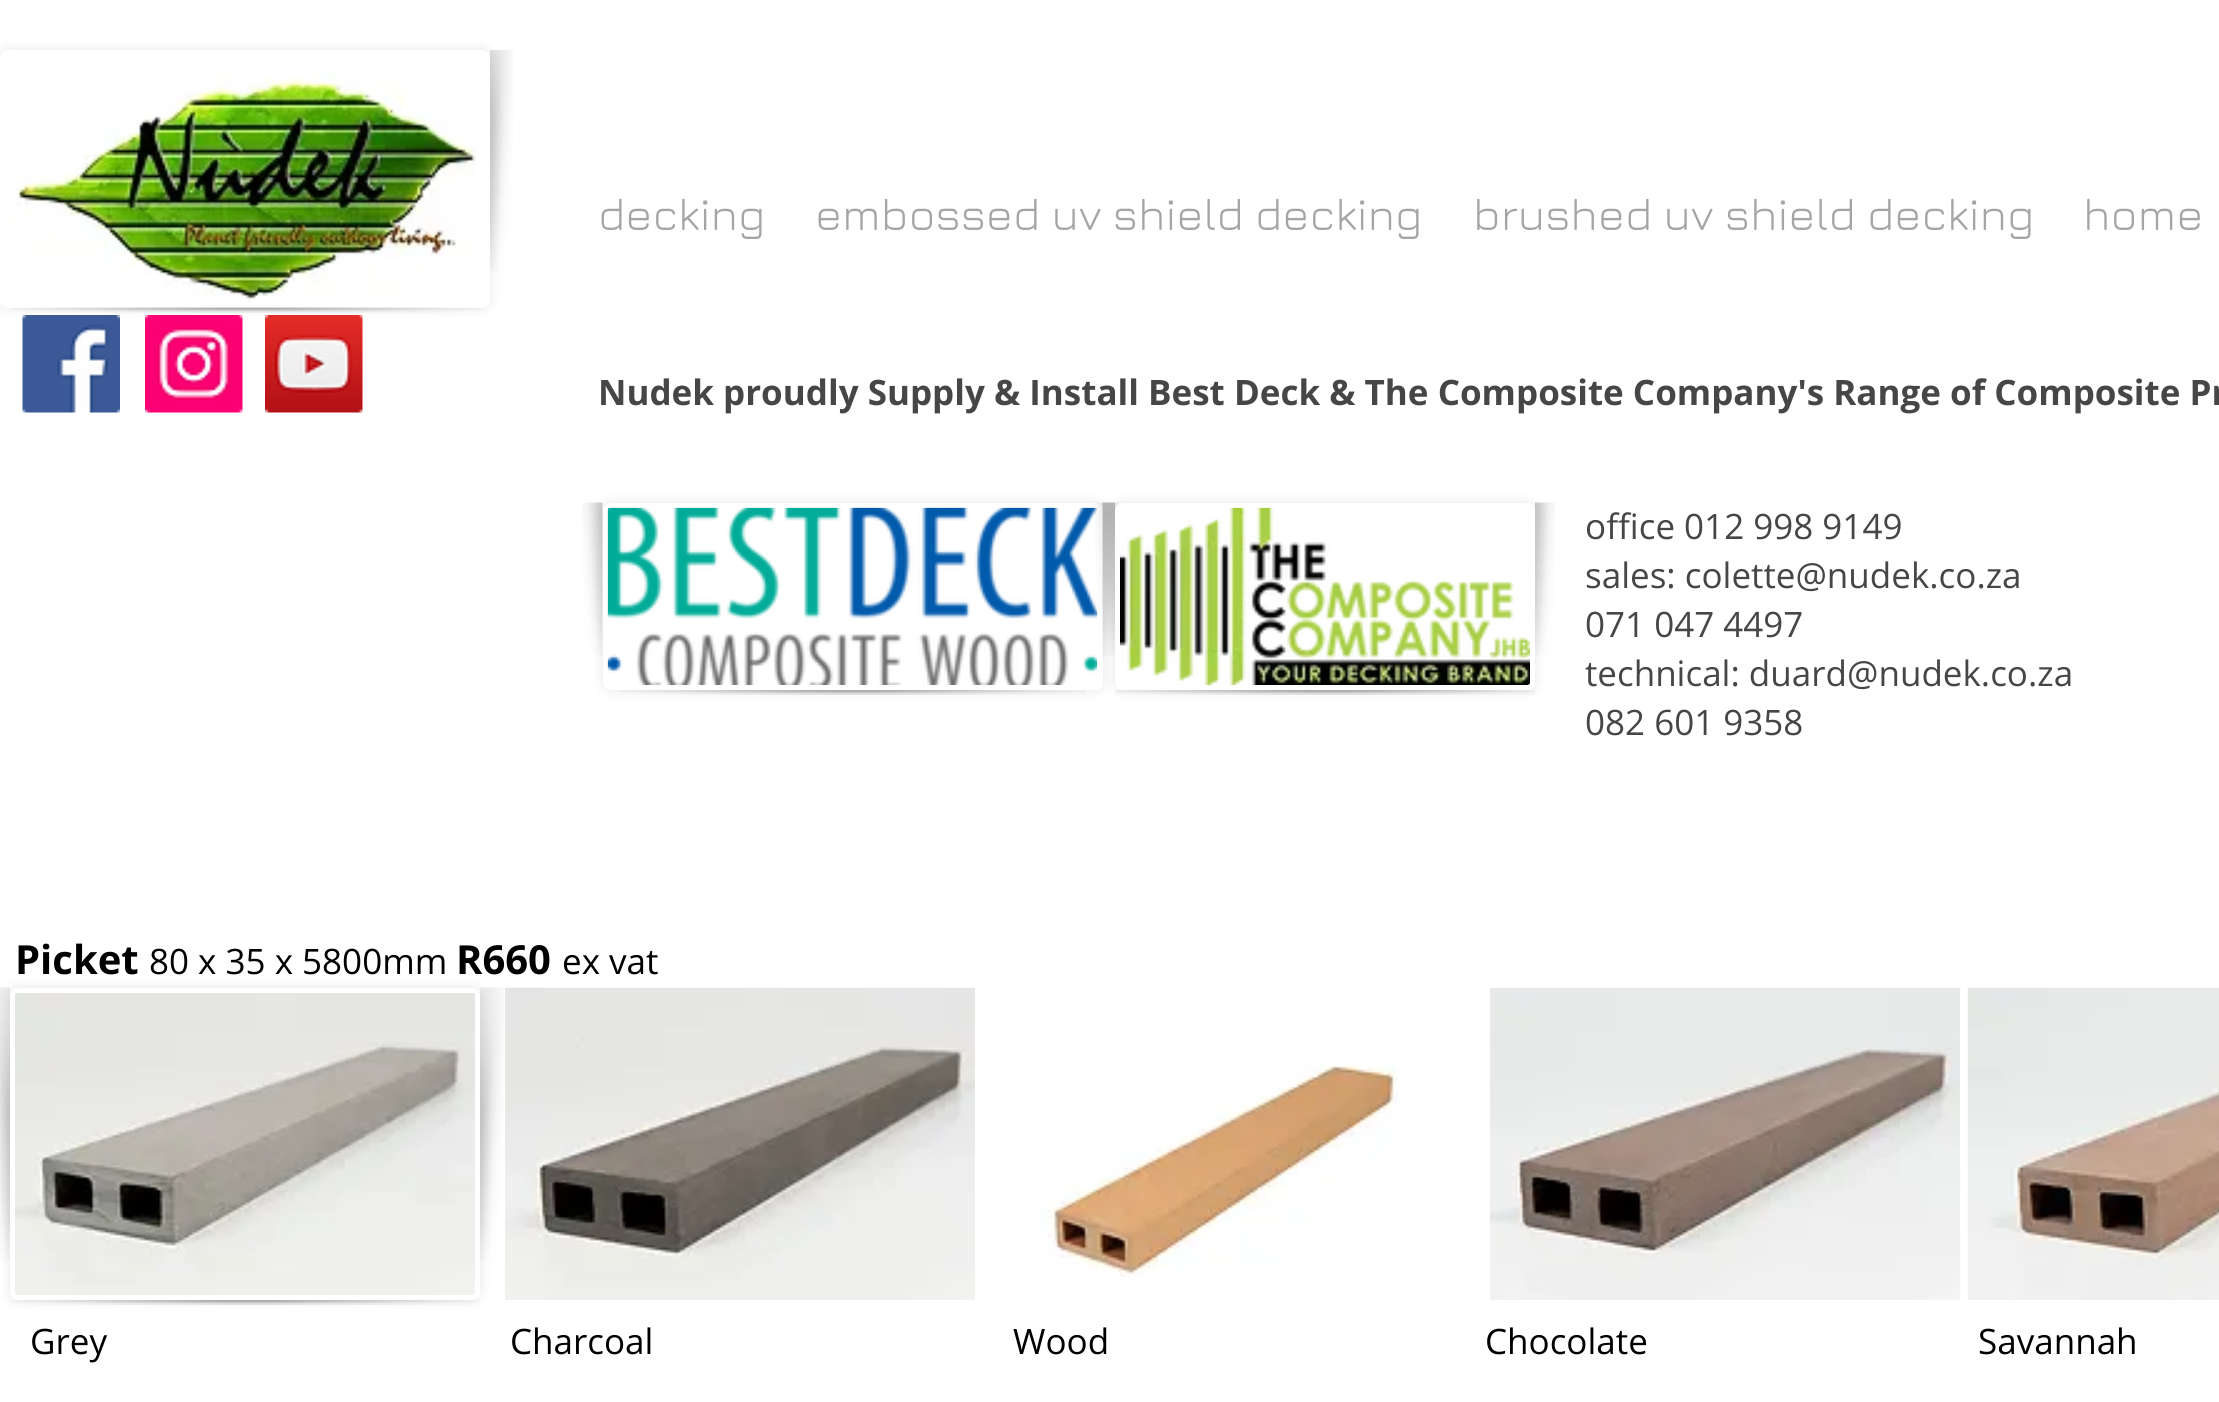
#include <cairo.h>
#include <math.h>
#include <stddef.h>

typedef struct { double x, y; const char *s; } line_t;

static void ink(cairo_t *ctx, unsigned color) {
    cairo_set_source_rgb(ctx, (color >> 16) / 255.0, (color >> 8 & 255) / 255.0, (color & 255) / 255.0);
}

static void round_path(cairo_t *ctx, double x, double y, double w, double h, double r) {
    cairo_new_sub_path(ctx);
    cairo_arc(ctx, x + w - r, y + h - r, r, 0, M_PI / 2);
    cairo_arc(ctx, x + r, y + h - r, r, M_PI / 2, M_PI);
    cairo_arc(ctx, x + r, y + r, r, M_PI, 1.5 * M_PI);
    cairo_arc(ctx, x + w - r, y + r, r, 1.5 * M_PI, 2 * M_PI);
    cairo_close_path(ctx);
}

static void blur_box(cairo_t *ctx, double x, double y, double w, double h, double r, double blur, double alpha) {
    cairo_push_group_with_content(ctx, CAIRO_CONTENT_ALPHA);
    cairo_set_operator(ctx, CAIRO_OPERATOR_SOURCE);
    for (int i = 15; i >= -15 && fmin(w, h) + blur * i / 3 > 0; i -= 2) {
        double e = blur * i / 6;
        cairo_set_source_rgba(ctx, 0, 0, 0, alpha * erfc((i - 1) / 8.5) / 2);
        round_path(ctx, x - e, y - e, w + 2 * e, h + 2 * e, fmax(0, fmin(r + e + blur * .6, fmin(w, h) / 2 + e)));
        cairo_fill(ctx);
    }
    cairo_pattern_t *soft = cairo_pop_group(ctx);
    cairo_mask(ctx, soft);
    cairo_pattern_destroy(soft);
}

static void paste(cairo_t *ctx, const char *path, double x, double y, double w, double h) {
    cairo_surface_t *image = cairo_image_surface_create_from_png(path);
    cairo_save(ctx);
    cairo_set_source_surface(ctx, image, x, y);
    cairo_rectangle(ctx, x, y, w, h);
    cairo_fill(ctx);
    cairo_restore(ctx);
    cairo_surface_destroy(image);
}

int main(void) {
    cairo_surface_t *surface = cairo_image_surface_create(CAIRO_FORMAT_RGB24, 2219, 1402);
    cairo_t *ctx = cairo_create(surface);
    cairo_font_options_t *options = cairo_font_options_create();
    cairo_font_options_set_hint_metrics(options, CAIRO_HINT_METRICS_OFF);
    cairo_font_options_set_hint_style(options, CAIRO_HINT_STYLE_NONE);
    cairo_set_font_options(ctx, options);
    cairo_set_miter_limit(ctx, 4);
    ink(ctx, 0xFFFFFF);
    cairo_paint(ctx);
    ink(ctx, 0x000000);
    blur_box(ctx, 0, 50, 490, 258, 8, 6, 0.1);
    ink(ctx, 0xFFFFFF);
    round_path(ctx, 0, 50, 490, 258, 8);
    cairo_fill(ctx);
    paste(ctx, "media/1.png", 5, 74, 471, 228);
    paste(ctx, "media/2.png", 11, 307, 468, 6);
    paste(ctx, "media/3.png", 490, 50, 23, 221);
    cairo_select_font_face(ctx, "Jura", CAIRO_FONT_SLANT_NORMAL, CAIRO_FONT_WEIGHT_NORMAL);
    cairo_set_font_size(ctx, 45);
    ink(ctx, 0xA6A4A4);
    {
        static const line_t items[] = {
            {598, 230, "decking"},
            {815, 230, "embossed uv shield decking"},
            {1473, 230, "brushed uv shield decking"},
            {2083, 230, "home"},
        };
        for (size_t i = 0; i < sizeof items / sizeof *items; i++) {
            cairo_move_to(ctx, items[i].x, items[i].y);
            cairo_show_text(ctx, items[i].s);
        }
    }
    paste(ctx, "media/4.png", 22, 315, 98, 98);
    paste(ctx, "media/5.png", 145, 315, 98, 98);
    paste(ctx, "media/6.png", 265, 315, 98, 98);
    cairo_select_font_face(ctx, "Open Sans", CAIRO_FONT_SLANT_NORMAL, CAIRO_FONT_WEIGHT_BOLD);
    cairo_set_font_size(ctx, 35);
    ink(ctx, 0x474646);
    cairo_move_to(ctx, 598, 405);
    cairo_show_text(ctx, "Nudek proudly Supply & Install Best Deck & The Composite Company's Range of Composite Pr");
    ink(ctx, 0x000000);
    blur_box(ctx, 603, 503, 500, 187, 8, 6, 0.1);
    ink(ctx, 0xFFFFFF);
    round_path(ctx, 603, 503, 500, 187, 8);
    cairo_fill(ctx);
    paste(ctx, "media/7.png", 607, 507, 491, 178);
    paste(ctx, "media/8.png", 619, 690, 467, 5);
    paste(ctx, "media/9.png", 582, 502, 21, 154);
    paste(ctx, "media/10.png", 1102, 502, 21, 154);
    ink(ctx, 0x000000);
    blur_box(ctx, 1115, 503, 420, 187, 8, 6, 0.1);
    ink(ctx, 0xFFFFFF);
    round_path(ctx, 1117.5, 505.5, 415, 182, 5.5);
    cairo_fill_preserve(ctx);
    cairo_set_line_width(ctx, 5);
    cairo_stroke(ctx);
    paste(ctx, "media/11.png", 1120, 507, 410, 178);
    paste(ctx, "media/12.png", 1115, 690, 420, 5);
    paste(ctx, "media/13.png", 1095, 502, 20, 154);
    paste(ctx, "media/14.png", 1535, 502, 20, 154);
    cairo_select_font_face(ctx, "Open Sans", CAIRO_FONT_SLANT_NORMAL, CAIRO_FONT_WEIGHT_NORMAL);
    ink(ctx, 0x474646);
    {
        static const line_t items[] = {
            {1585, 539, "office 012 998 9149"},
            {1585, 588, "sales: colette@nudek.co.za"},
            {1585, 637, "071 047 4497"},
            {1585, 686, "technical: duard@nudek.co.za"},
            {1585, 735, "082 601 9358"},
        };
        for (size_t i = 0; i < sizeof items / sizeof *items; i++) {
            cairo_move_to(ctx, items[i].x, items[i].y);
            cairo_show_text(ctx, items[i].s);
        }
    }
    ink(ctx, 0x000000);
    blur_box(ctx, 10, 988, 470, 312, 8, 6, 0.1);
    cairo_select_font_face(ctx, "Open Sans", CAIRO_FONT_SLANT_NORMAL, CAIRO_FONT_WEIGHT_BOLD);
    cairo_set_font_size(ctx, 40);
    ink(ctx, 0x000000);
    cairo_move_to(ctx, 15, 974);
    cairo_show_text(ctx, "Picket");
    cairo_select_font_face(ctx, "Open Sans", CAIRO_FONT_SLANT_NORMAL, CAIRO_FONT_WEIGHT_NORMAL);
    cairo_set_font_size(ctx, 35);
    cairo_move_to(ctx, 149, 974);
    cairo_show_text(ctx, "80 x 35 x 5800mm");
    cairo_select_font_face(ctx, "Open Sans", CAIRO_FONT_SLANT_NORMAL, CAIRO_FONT_WEIGHT_BOLD);
    cairo_set_font_size(ctx, 40);
    cairo_move_to(ctx, 456, 974);
    cairo_show_text(ctx, "R660");
    cairo_select_font_face(ctx, "Open Sans", CAIRO_FONT_SLANT_NORMAL, CAIRO_FONT_WEIGHT_NORMAL);
    cairo_set_font_size(ctx, 35);
    cairo_move_to(ctx, 562, 974);
    cairo_show_text(ctx, "ex vat");
    ink(ctx, 0xFFFFFF);
    round_path(ctx, 10, 988, 470, 312, 8);
    cairo_fill(ctx);
    paste(ctx, "media/15.png", 15, 993, 460, 302);
    paste(ctx, "media/16.png", 10, 1300, 470, 5);
    paste(ctx, "media/17.png", 0, 987, 10, 274);
    paste(ctx, "media/18.png", 480, 987, 24, 274);
    paste(ctx, "media/19.png", 505, 987, 470, 313);
    paste(ctx, "media/20.png", 1038, 1065, 360, 212);
    paste(ctx, "media/21.png", 1490, 987, 470, 313);
    paste(ctx, "media/22.png", 1967, 987, 252, 313);
    ink(ctx, 0x000000);
    {
        static const line_t items[] = {
            {30, 1354, "Grey"},
            {510, 1354, "Charcoal"},
            {1013, 1354, "Wood"},
            {1485, 1354, "Chocolate"},
            {1978, 1354, "Savannah"},
        };
        for (size_t i = 0; i < sizeof items / sizeof *items; i++) {
            cairo_move_to(ctx, items[i].x, items[i].y);
            cairo_show_text(ctx, items[i].s);
        }
    }
    cairo_surface_write_to_png(surface, "image.png");
    cairo_font_options_destroy(options);
    cairo_destroy(ctx);
    cairo_surface_destroy(surface);
    return 0;
}
